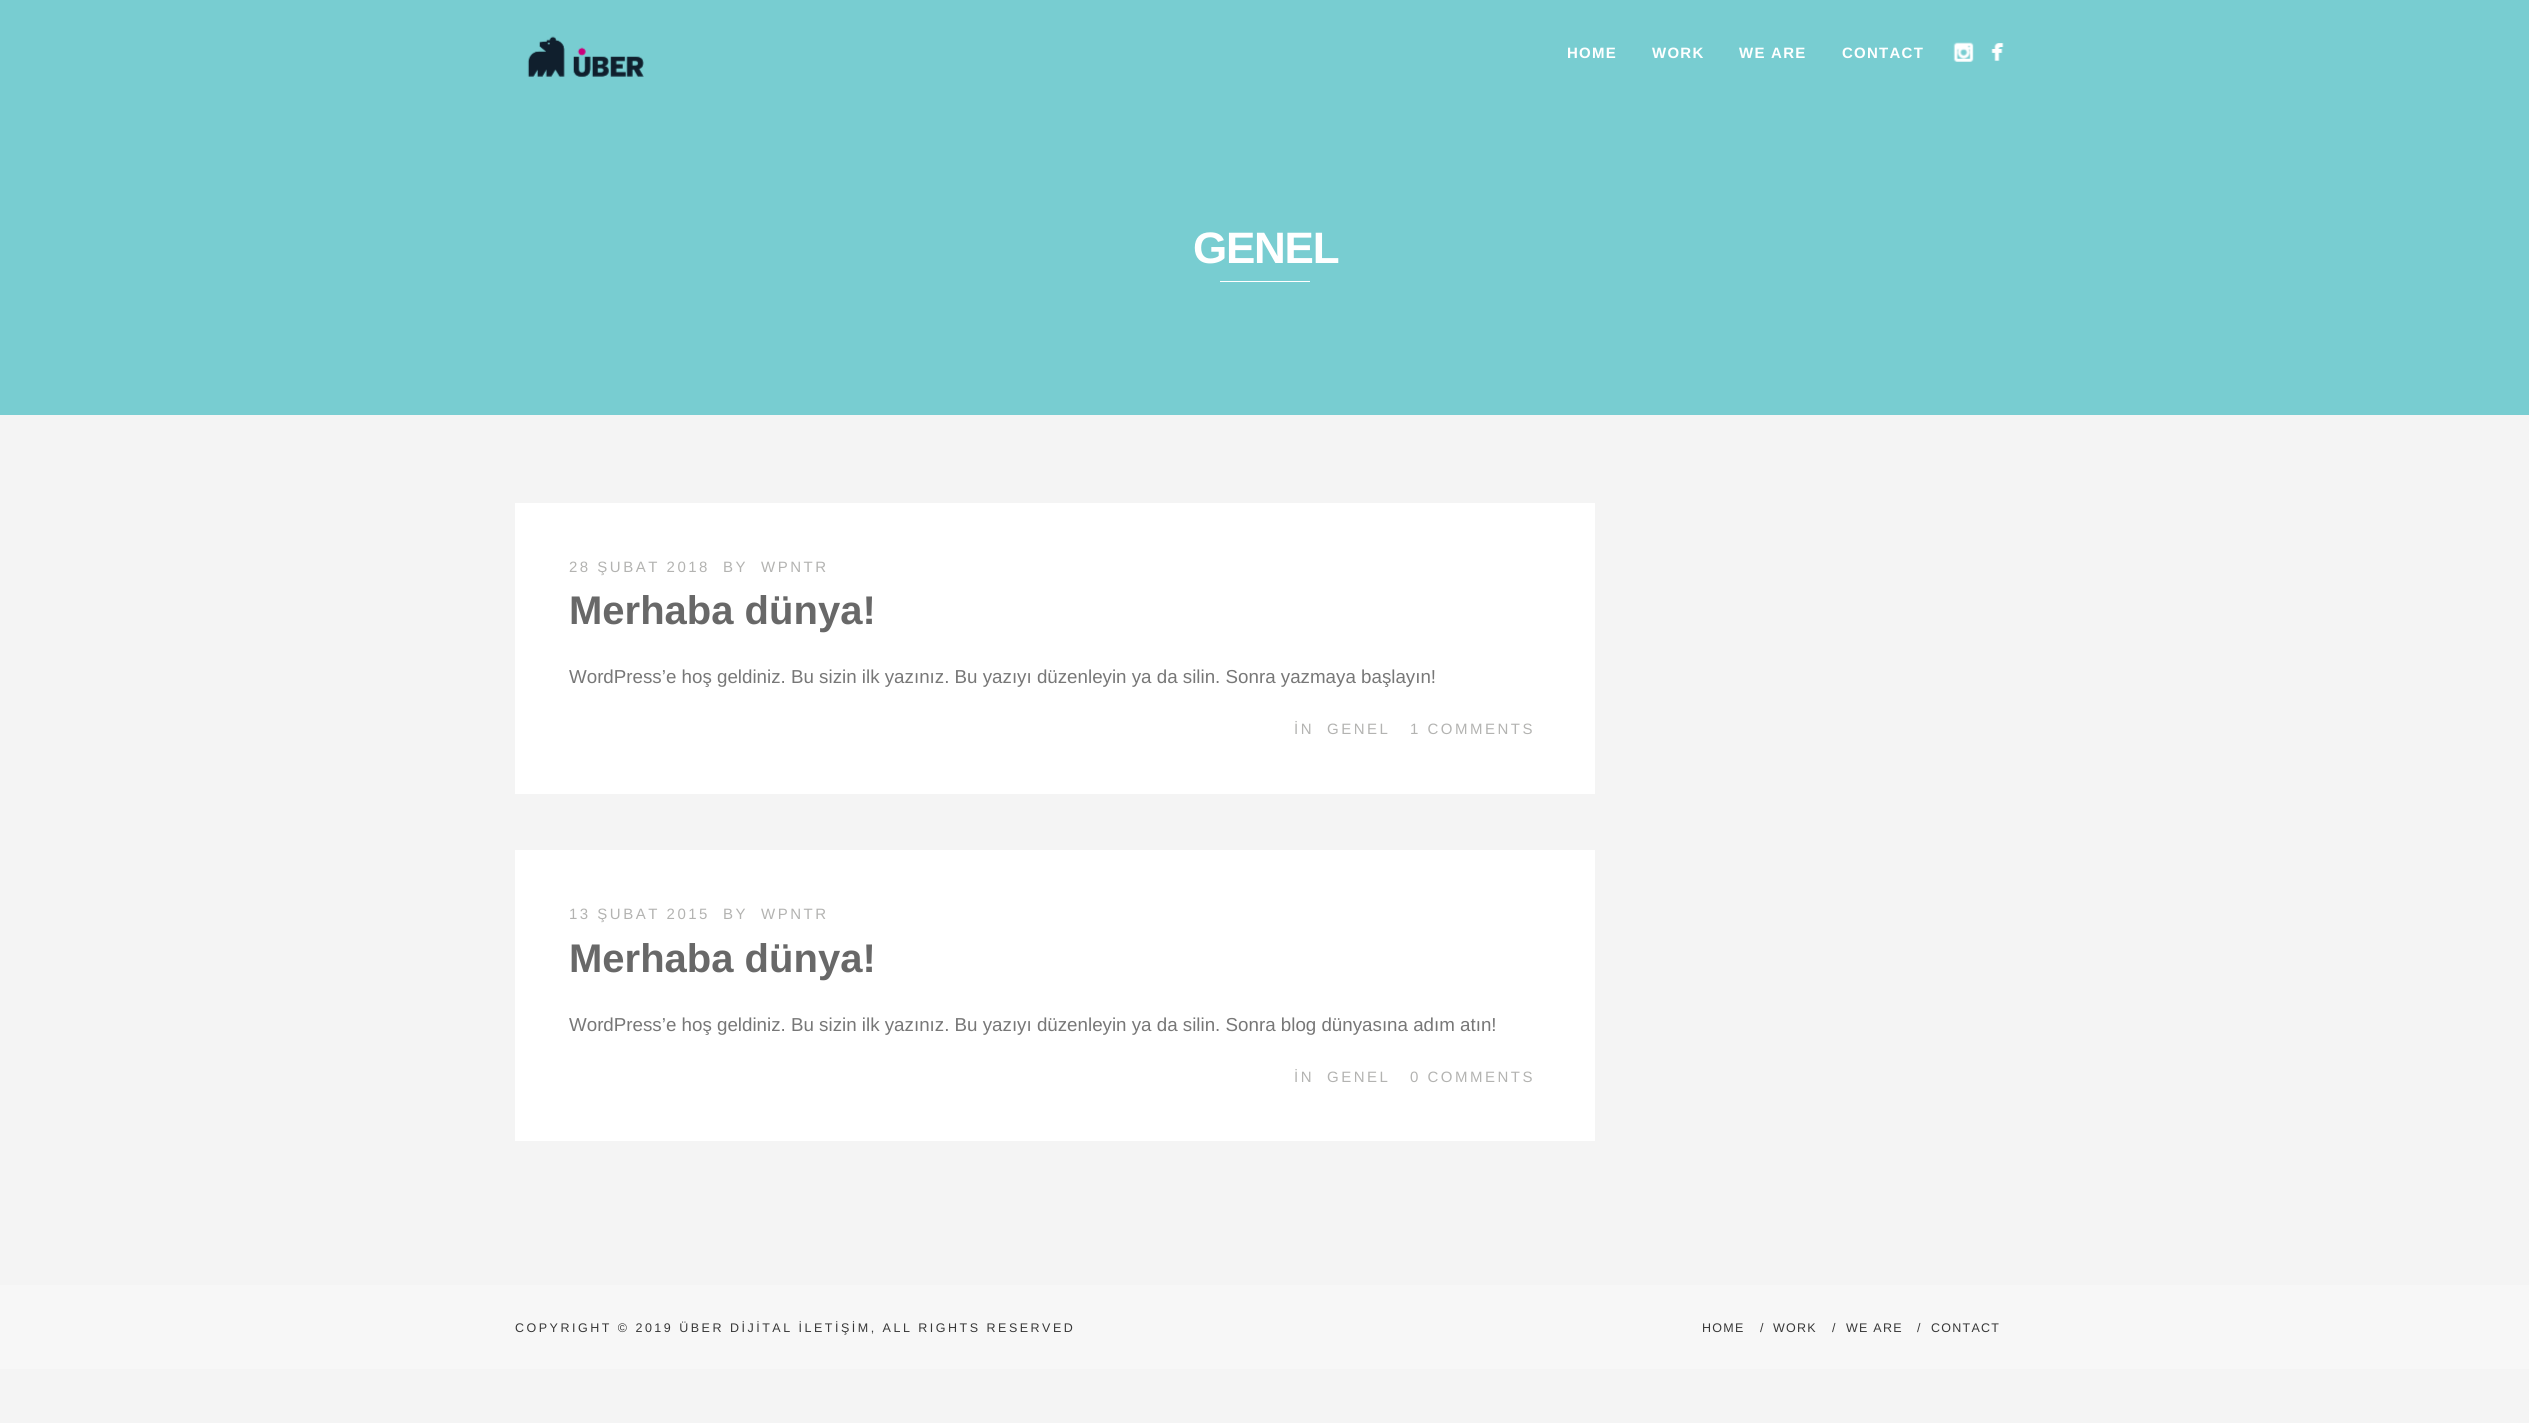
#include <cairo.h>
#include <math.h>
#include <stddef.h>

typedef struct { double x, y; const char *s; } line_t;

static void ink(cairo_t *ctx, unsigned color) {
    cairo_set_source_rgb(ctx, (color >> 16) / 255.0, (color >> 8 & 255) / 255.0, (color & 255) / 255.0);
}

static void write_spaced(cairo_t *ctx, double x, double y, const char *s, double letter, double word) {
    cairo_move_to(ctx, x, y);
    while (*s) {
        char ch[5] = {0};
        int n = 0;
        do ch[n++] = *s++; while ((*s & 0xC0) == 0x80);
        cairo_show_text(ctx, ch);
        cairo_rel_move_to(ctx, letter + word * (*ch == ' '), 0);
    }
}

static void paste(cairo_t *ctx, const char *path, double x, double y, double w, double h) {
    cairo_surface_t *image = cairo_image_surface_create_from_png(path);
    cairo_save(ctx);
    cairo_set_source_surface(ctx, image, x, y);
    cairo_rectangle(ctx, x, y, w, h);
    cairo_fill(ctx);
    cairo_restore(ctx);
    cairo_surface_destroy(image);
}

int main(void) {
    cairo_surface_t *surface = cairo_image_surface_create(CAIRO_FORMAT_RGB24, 2529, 1423);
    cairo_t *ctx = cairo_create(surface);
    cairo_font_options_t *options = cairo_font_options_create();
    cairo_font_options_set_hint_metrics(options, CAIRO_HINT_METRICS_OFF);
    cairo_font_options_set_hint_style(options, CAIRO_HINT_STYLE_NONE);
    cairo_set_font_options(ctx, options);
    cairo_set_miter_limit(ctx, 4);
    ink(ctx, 0xF4F4F4);
    cairo_paint(ctx);
    ink(ctx, 0x78CDD1);
    cairo_rectangle(ctx, 0, 0, 2529, 415);
    cairo_fill(ctx);
    paste(ctx, "media/1.png", 527, 36, 117, 41);
    cairo_select_font_face(ctx, "Liberation Sans", CAIRO_FONT_SLANT_NORMAL, CAIRO_FONT_WEIGHT_BOLD);
    cairo_set_font_size(ctx, 15);
    ink(ctx, 0xFFFFFF);
    {
        static const line_t items[] = {
            {1567, 58, "HOME"},
            {1652, 58, "WORK"},
            {1739, 58, "WE ARE"},
            {1842, 58, "CONTACT"},
        };
        for (size_t i = 0; i < sizeof items / sizeof *items; i++) {
            write_spaced(ctx, items[i].x, items[i].y, items[i].s, 1.25, 0);
        }
    }
    paste(ctx, "media/2.png", 1953, 42, 21, 20);
    paste(ctx, "media/3.png", 1991, 43, 13, 18);
    cairo_set_font_size(ctx, 44);
    write_spaced(ctx, 1193, 263, "GENEL", -1.25, 0);
    cairo_rectangle(ctx, 1220, 281, 90, 1);
    cairo_fill(ctx);
    cairo_rectangle(ctx, 515, 503, 1080, 291);
    cairo_fill(ctx);
    cairo_select_font_face(ctx, "Liberation Sans", CAIRO_FONT_SLANT_NORMAL, CAIRO_FONT_WEIGHT_NORMAL);
    cairo_set_font_size(ctx, 15);
    ink(ctx, 0xB3B3B1);
    {
        static const line_t items[] = {
            {569, 572, "28 ŞUBAT 2018"},
            {723, 572, "BY"},
            {761, 572, "WPNTR"},
        };
        for (size_t i = 0; i < sizeof items / sizeof *items; i++) {
            write_spaced(ctx, items[i].x, items[i].y, items[i].s, 2.5, 0);
        }
    }
    cairo_select_font_face(ctx, "Liberation Sans", CAIRO_FONT_SLANT_NORMAL, CAIRO_FONT_WEIGHT_BOLD);
    cairo_set_font_size(ctx, 40);
    ink(ctx, 0x686868);
    cairo_move_to(ctx, 569, 624);
    cairo_show_text(ctx, "Merhaba dünya!");
    cairo_select_font_face(ctx, "Liberation Sans", CAIRO_FONT_SLANT_NORMAL, CAIRO_FONT_WEIGHT_NORMAL);
    cairo_set_font_size(ctx, 18.75);
    ink(ctx, 0x777777);
    cairo_move_to(ctx, 569, 683);
    cairo_show_text(ctx, "WordPress’e hoş geldiniz. Bu sizin ilk yazınız. Bu yazıyı düzenleyin ya da silin. Sonra yazmaya başlayın!");
    cairo_set_font_size(ctx, 15);
    ink(ctx, 0xB3B3B1);
    {
        static const line_t items[] = {
            {1294, 734, "İN"},
            {1327, 734, "GENEL"},
            {1410, 734, "1 COMMENTS"},
        };
        for (size_t i = 0; i < sizeof items / sizeof *items; i++) {
            write_spaced(ctx, items[i].x, items[i].y, items[i].s, 2.5, 0);
        }
    }
    ink(ctx, 0xFFFFFF);
    cairo_rectangle(ctx, 515, 850, 1080, 291);
    cairo_fill(ctx);
    ink(ctx, 0xB3B3B1);
    {
        static const line_t items[] = {
            {569, 919, "13 ŞUBAT 2015"},
            {723, 919, "BY"},
            {761, 919, "WPNTR"},
        };
        for (size_t i = 0; i < sizeof items / sizeof *items; i++) {
            write_spaced(ctx, items[i].x, items[i].y, items[i].s, 2.5, 0);
        }
    }
    cairo_select_font_face(ctx, "Liberation Sans", CAIRO_FONT_SLANT_NORMAL, CAIRO_FONT_WEIGHT_BOLD);
    cairo_set_font_size(ctx, 40);
    ink(ctx, 0x686868);
    cairo_move_to(ctx, 569, 972);
    cairo_show_text(ctx, "Merhaba dünya!");
    cairo_select_font_face(ctx, "Liberation Sans", CAIRO_FONT_SLANT_NORMAL, CAIRO_FONT_WEIGHT_NORMAL);
    cairo_set_font_size(ctx, 18.75);
    ink(ctx, 0x777777);
    cairo_move_to(ctx, 569, 1031);
    cairo_show_text(ctx, "WordPress’e hoş geldiniz. Bu sizin ilk yazınız. Bu yazıyı düzenleyin ya da silin. Sonra blog dünyasına adım atın!");
    cairo_set_font_size(ctx, 15);
    ink(ctx, 0xB3B3B1);
    {
        static const line_t items[] = {
            {1294, 1082, "İN"},
            {1327, 1082, "GENEL"},
            {1410, 1082, "0 COMMENTS"},
        };
        for (size_t i = 0; i < sizeof items / sizeof *items; i++) {
            write_spaced(ctx, items[i].x, items[i].y, items[i].s, 2.5, 0);
        }
    }
    ink(ctx, 0xF7F7F7);
    cairo_rectangle(ctx, 0, 1285, 2529, 84);
    cairo_fill(ctx);
    cairo_set_font_size(ctx, 12.5);
    ink(ctx, 0x383838);
    write_spaced(ctx, 515, 1332, "COPYRIGHT © 2019 ÜBER DİJİTAL İLETİŞİM, ALL RIGHTS RESERVED", 2.5, 0);
    {
        static const line_t items[] = {
            {1702, 1332, "HOME"},
            {1760, 1332, "/"},
            {1773, 1332, "WORK"},
            {1832, 1332, "/"},
            {1846, 1332, "WE ARE"},
            {1917, 1332, "/"},
            {1931, 1332, "CONTACT"},
        };
        for (size_t i = 0; i < sizeof items / sizeof *items; i++) {
            write_spaced(ctx, items[i].x, items[i].y, items[i].s, 1.25, 0);
        }
    }
    cairo_surface_write_to_png(surface, "image.png");
    cairo_font_options_destroy(options);
    cairo_destroy(ctx);
    cairo_surface_destroy(surface);
    return 0;
}
